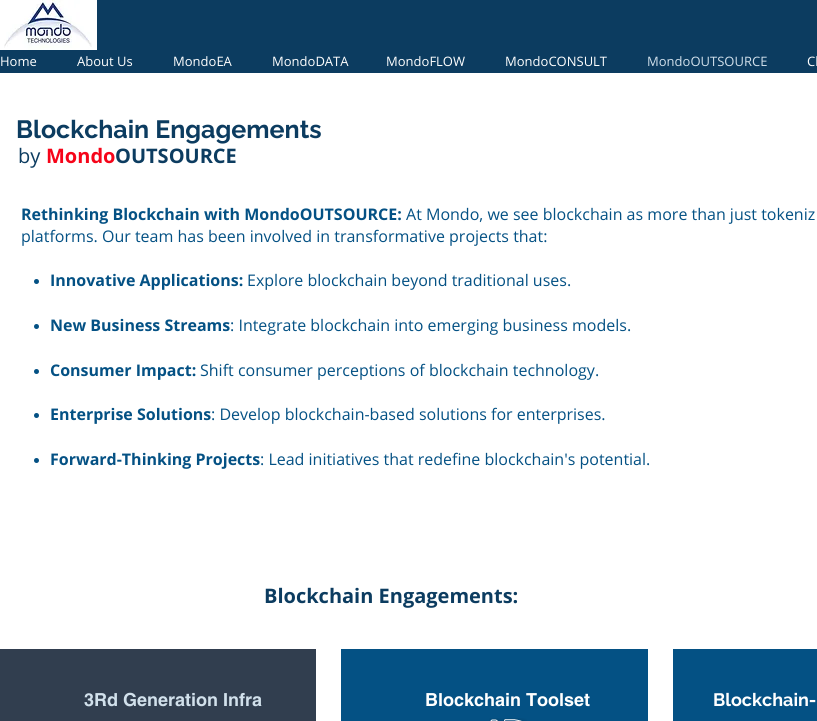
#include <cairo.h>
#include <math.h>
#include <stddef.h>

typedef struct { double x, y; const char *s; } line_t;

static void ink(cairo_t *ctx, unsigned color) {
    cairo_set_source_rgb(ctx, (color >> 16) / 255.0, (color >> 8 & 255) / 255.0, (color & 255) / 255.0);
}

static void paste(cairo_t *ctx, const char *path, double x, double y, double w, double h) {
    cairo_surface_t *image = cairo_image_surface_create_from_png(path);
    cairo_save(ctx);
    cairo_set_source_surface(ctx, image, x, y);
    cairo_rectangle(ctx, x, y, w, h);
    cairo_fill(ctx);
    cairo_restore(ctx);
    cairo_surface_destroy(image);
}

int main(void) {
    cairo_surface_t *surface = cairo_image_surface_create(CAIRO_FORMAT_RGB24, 817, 721);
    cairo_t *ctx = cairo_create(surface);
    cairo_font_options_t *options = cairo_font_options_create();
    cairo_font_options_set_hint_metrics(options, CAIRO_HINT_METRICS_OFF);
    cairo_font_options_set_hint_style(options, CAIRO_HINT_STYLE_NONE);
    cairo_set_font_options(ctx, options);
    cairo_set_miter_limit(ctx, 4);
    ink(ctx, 0xFFFFFF);
    cairo_paint(ctx);
    ink(ctx, 0x0C3C60);
    cairo_rectangle(ctx, 0, 0, 817, 73);
    cairo_fill(ctx);
    paste(ctx, "media/1.png", 0, 0, 97, 50);
    cairo_select_font_face(ctx, "Open Sans", CAIRO_FONT_SLANT_NORMAL, CAIRO_FONT_WEIGHT_NORMAL);
    cairo_set_font_size(ctx, 13);
    ink(ctx, 0xFFFFFF);
    {
        static const line_t items[] = {
            {0, 66, "Home"},
            {77, 66, "About Us"},
            {173, 66, "MondoEA"},
            {272, 66, "MondoDATA"},
            {386, 66, "MondoFLOW"},
            {505, 66, "MondoCONSULT"},
        };
        for (size_t i = 0; i < sizeof items / sizeof *items; i++) {
            cairo_move_to(ctx, items[i].x, items[i].y);
            cairo_show_text(ctx, items[i].s);
        }
    }
    ink(ctx, 0xD1E0EB);
    cairo_move_to(ctx, 647, 66);
    cairo_show_text(ctx, "MondoOUTSOURCE");
    ink(ctx, 0xFFFFFF);
    cairo_move_to(ctx, 807, 66);
    cairo_show_text(ctx, "Cl");
    cairo_select_font_face(ctx, "Raleway", CAIRO_FONT_SLANT_NORMAL, CAIRO_FONT_WEIGHT_BOLD);
    cairo_set_font_size(ctx, 25);
    ink(ctx, 0x0C3C60);
    cairo_move_to(ctx, 16, 138);
    cairo_show_text(ctx, "Blockchain Engagements");
    cairo_select_font_face(ctx, "Open Sans", CAIRO_FONT_SLANT_NORMAL, CAIRO_FONT_WEIGHT_BOLD);
    cairo_set_font_size(ctx, 16);
    ink(ctx, 0x045184);
    cairo_move_to(ctx, 21, 220);
    cairo_show_text(ctx, "Rethinking Blockchain with MondoOUTSOURCE:");
    cairo_select_font_face(ctx, "Open Sans", CAIRO_FONT_SLANT_NORMAL, CAIRO_FONT_WEIGHT_NORMAL);
    cairo_move_to(ctx, 406, 220);
    cairo_show_text(ctx, "At Mondo, we see blockchain as more than just tokeniz");
    cairo_move_to(ctx, 21, 242);
    cairo_show_text(ctx, "platforms. Our team has been involved in transformative projects that:");
    cairo_new_path(ctx);
    cairo_arc(ctx, 36.5, 281.5, 2.5, 0, 2 * M_PI);
    cairo_fill(ctx);
    cairo_select_font_face(ctx, "Open Sans", CAIRO_FONT_SLANT_NORMAL, CAIRO_FONT_WEIGHT_BOLD);
    cairo_move_to(ctx, 50, 286);
    cairo_show_text(ctx, "Innovative Applications:");
    cairo_select_font_face(ctx, "Open Sans", CAIRO_FONT_SLANT_NORMAL, CAIRO_FONT_WEIGHT_NORMAL);
    cairo_move_to(ctx, 247, 286);
    cairo_show_text(ctx, "Explore blockchain beyond traditional uses.");
    cairo_new_path(ctx);
    cairo_arc(ctx, 36.5, 326.5, 2.5, 0, 2 * M_PI);
    cairo_fill(ctx);
    cairo_select_font_face(ctx, "Open Sans", CAIRO_FONT_SLANT_NORMAL, CAIRO_FONT_WEIGHT_BOLD);
    cairo_move_to(ctx, 50, 331);
    cairo_show_text(ctx, "New Business Streams");
    cairo_select_font_face(ctx, "Open Sans", CAIRO_FONT_SLANT_NORMAL, CAIRO_FONT_WEIGHT_NORMAL);
    cairo_move_to(ctx, 230, 331);
    cairo_show_text(ctx, ": Integrate blockchain into emerging business models.");
    cairo_new_path(ctx);
    cairo_arc(ctx, 36.5, 371.5, 2.5, 0, 2 * M_PI);
    cairo_fill(ctx);
    cairo_select_font_face(ctx, "Open Sans", CAIRO_FONT_SLANT_NORMAL, CAIRO_FONT_WEIGHT_BOLD);
    cairo_move_to(ctx, 50, 376);
    cairo_show_text(ctx, "Consumer Impact:");
    cairo_select_font_face(ctx, "Open Sans", CAIRO_FONT_SLANT_NORMAL, CAIRO_FONT_WEIGHT_NORMAL);
    cairo_move_to(ctx, 200, 376);
    cairo_show_text(ctx, "Shift consumer perceptions of blockchain technology.");
    cairo_new_path(ctx);
    cairo_arc(ctx, 36.5, 415.5, 2.5, 0, 2 * M_PI);
    cairo_fill(ctx);
    cairo_select_font_face(ctx, "Open Sans", CAIRO_FONT_SLANT_NORMAL, CAIRO_FONT_WEIGHT_BOLD);
    cairo_move_to(ctx, 50, 420);
    cairo_show_text(ctx, "Enterprise Solutions");
    cairo_select_font_face(ctx, "Open Sans", CAIRO_FONT_SLANT_NORMAL, CAIRO_FONT_WEIGHT_NORMAL);
    cairo_move_to(ctx, 211, 420);
    cairo_show_text(ctx, ": Develop blockchain-based solutions for enterprises.");
    cairo_new_path(ctx);
    cairo_arc(ctx, 36.5, 460.5, 2.5, 0, 2 * M_PI);
    cairo_fill(ctx);
    cairo_select_font_face(ctx, "Open Sans", CAIRO_FONT_SLANT_NORMAL, CAIRO_FONT_WEIGHT_BOLD);
    cairo_move_to(ctx, 50, 465);
    cairo_show_text(ctx, "Forward-Thinking Projects");
    cairo_select_font_face(ctx, "Open Sans", CAIRO_FONT_SLANT_NORMAL, CAIRO_FONT_WEIGHT_NORMAL);
    cairo_move_to(ctx, 260, 465);
    cairo_show_text(ctx, ": Lead initiatives that redefine blockchain's potential.");
    cairo_set_font_size(ctx, 20);
    ink(ctx, 0x0C3C60);
    cairo_move_to(ctx, 18, 163);
    cairo_show_text(ctx, "by");
    cairo_select_font_face(ctx, "Open Sans", CAIRO_FONT_SLANT_NORMAL, CAIRO_FONT_WEIGHT_BOLD);
    ink(ctx, 0xF60419);
    cairo_move_to(ctx, 46, 163);
    cairo_show_text(ctx, "Mondo");
    ink(ctx, 0x0C3C60);
    cairo_move_to(ctx, 115, 163);
    cairo_show_text(ctx, "OUTSOURCE");
    cairo_move_to(ctx, 264, 603);
    cairo_show_text(ctx, "Blockchain Engagements:");
    ink(ctx, 0x313E4F);
    cairo_rectangle(ctx, 0, 649, 316, 72);
    cairo_fill(ctx);
    cairo_select_font_face(ctx, "helvetica", CAIRO_FONT_SLANT_NORMAL, CAIRO_FONT_WEIGHT_BOLD);
    cairo_set_font_size(ctx, 18);
    ink(ctx, 0xD1E0EB);
    cairo_move_to(ctx, 84, 706);
    cairo_show_text(ctx, "3Rd Generation Infra");
    ink(ctx, 0x045184);
    cairo_rectangle(ctx, 341, 649, 307, 72);
    cairo_fill(ctx);
    ink(ctx, 0xFFFFFF);
    cairo_move_to(ctx, 425, 706);
    cairo_show_text(ctx, "Blockchain Toolset");
    paste(ctx, "media/2.png", 489, 718, 38, 3);
    ink(ctx, 0x045184);
    cairo_rectangle(ctx, 673, 649, 144, 72);
    cairo_fill(ctx);
    cairo_select_font_face(ctx, "Raleway", CAIRO_FONT_SLANT_NORMAL, CAIRO_FONT_WEIGHT_BOLD);
    ink(ctx, 0xFFFFFF);
    cairo_move_to(ctx, 713, 706);
    cairo_show_text(ctx, "Blockchain-");
    cairo_surface_write_to_png(surface, "image.png");
    cairo_font_options_destroy(options);
    cairo_destroy(ctx);
    cairo_surface_destroy(surface);
    return 0;
}
